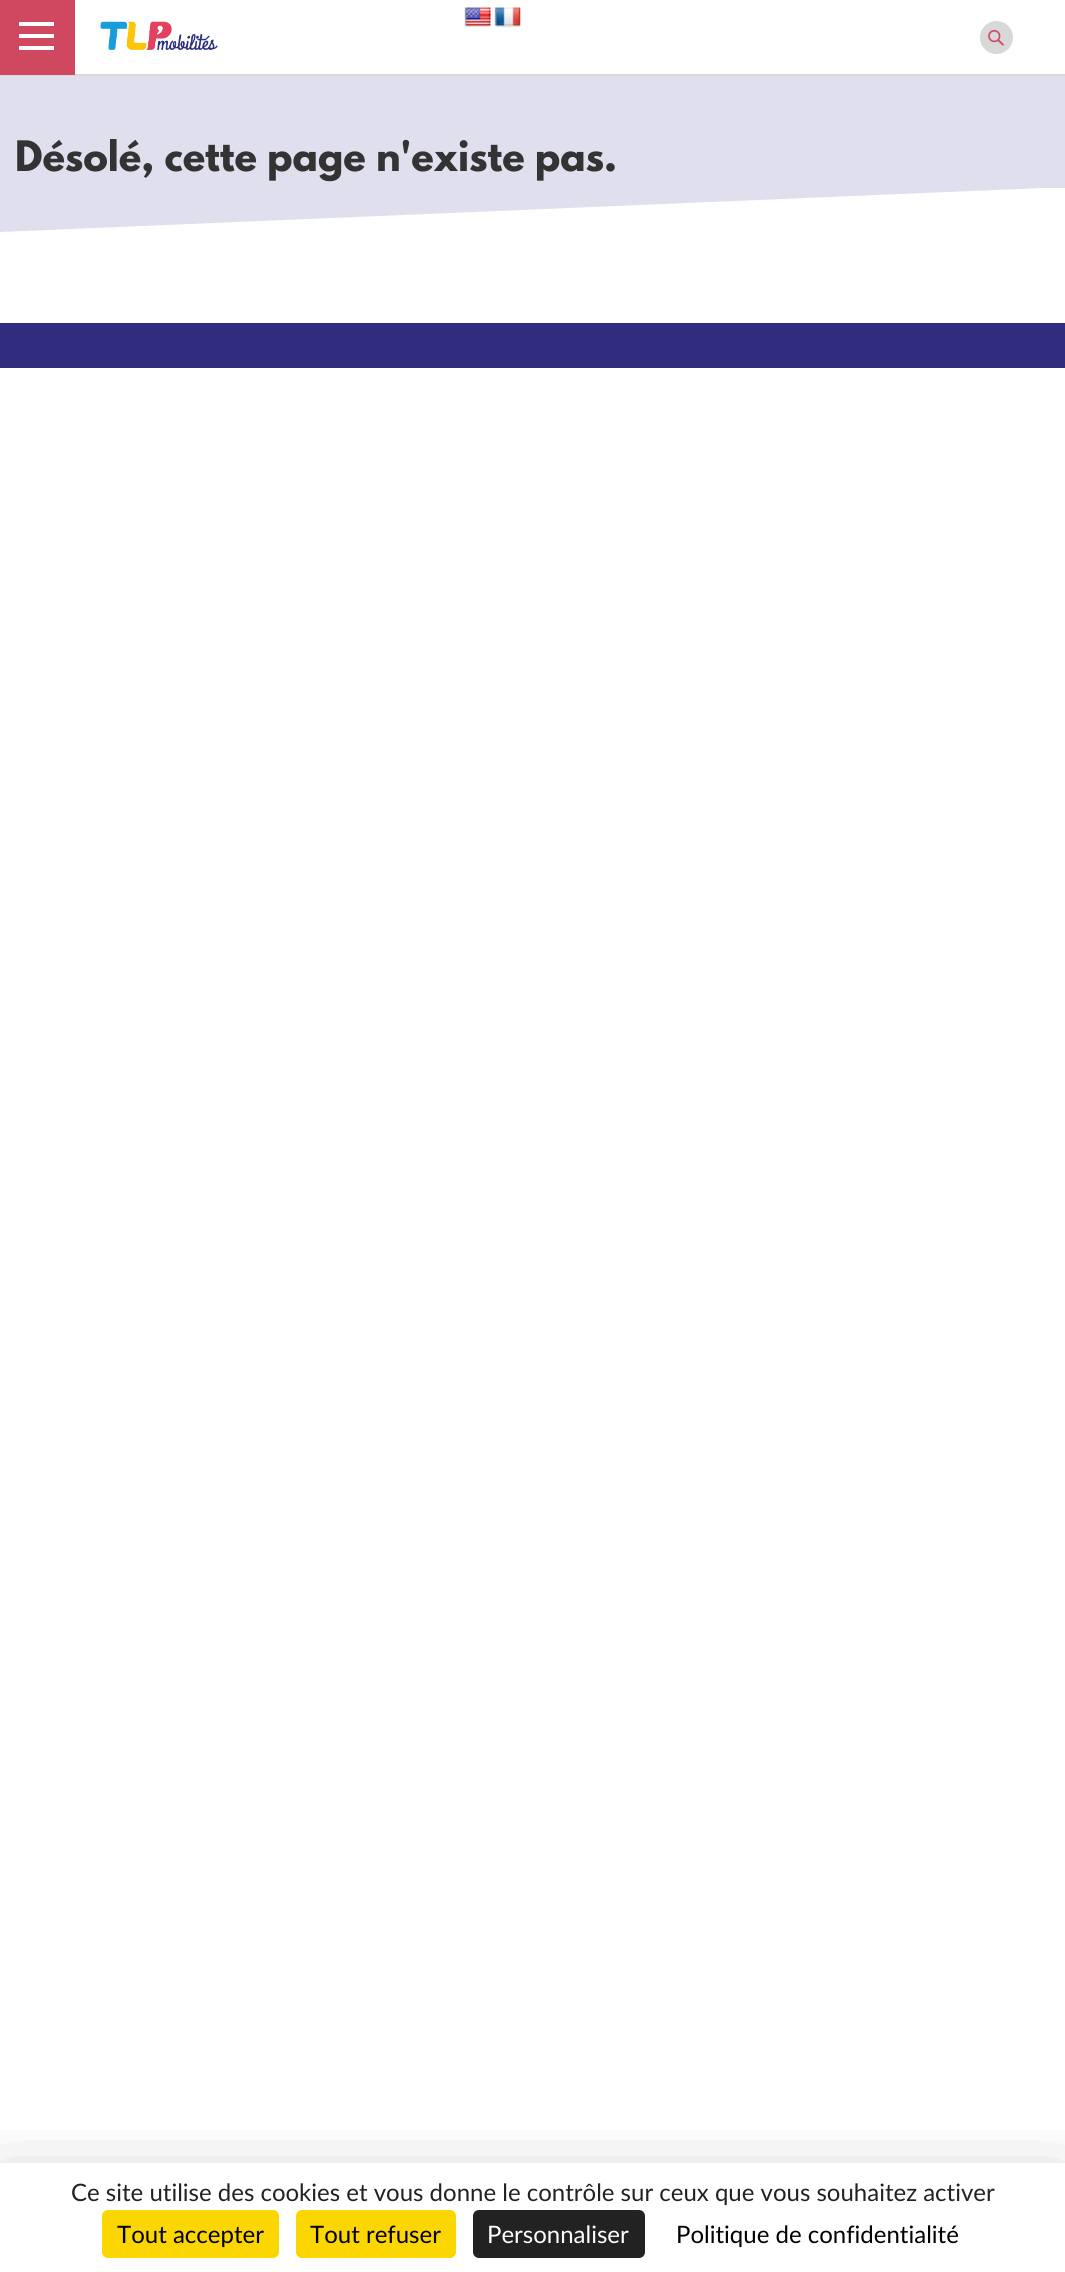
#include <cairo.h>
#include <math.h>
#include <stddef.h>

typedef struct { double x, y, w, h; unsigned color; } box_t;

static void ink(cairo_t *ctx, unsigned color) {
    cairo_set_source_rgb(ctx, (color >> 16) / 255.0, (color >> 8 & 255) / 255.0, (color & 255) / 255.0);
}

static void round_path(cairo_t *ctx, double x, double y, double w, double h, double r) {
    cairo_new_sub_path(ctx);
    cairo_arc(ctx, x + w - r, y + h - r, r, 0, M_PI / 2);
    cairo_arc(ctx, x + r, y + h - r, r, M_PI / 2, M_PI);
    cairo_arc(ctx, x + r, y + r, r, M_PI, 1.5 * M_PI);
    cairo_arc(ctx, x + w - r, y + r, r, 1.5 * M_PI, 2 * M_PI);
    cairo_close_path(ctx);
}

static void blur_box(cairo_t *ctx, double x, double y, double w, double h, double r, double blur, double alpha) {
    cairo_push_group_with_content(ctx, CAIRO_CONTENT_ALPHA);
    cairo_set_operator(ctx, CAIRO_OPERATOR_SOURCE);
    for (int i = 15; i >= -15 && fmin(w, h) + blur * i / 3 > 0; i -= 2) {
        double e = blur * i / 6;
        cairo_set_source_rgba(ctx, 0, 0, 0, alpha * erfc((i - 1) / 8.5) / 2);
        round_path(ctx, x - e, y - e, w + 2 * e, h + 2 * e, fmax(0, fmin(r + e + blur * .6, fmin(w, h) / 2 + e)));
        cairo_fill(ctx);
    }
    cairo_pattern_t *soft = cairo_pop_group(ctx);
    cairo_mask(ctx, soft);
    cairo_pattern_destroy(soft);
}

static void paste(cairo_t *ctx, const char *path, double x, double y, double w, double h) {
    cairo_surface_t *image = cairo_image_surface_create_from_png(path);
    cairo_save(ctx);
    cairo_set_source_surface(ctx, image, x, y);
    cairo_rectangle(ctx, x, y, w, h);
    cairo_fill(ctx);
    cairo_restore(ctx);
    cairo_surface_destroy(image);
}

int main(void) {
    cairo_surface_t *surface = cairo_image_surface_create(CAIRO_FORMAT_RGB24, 1065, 2272);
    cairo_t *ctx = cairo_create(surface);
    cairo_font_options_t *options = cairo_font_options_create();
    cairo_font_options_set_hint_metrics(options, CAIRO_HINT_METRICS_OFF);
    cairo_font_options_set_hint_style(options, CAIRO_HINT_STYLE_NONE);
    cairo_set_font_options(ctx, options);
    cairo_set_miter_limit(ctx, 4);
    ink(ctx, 0xFFFFFF);
    cairo_paint(ctx);
    {
        static const box_t items[] = {
            {0, 74, 1065, 2, 0xD8D8D8},
            {0, 0, 75, 75, 0xD0485F},
            {19, 22, 35, 4, 0xFFFFFF},
            {19, 34, 35, 4, 0xFFFFFF},
            {19, 46, 35, 4, 0xFFFFFF},
        };
        for (size_t i = 0; i < sizeof items / sizeof *items; i++) {
            ink(ctx, items[i].color);
            cairo_rectangle(ctx, items[i].x, items[i].y, items[i].w, items[i].h);
            cairo_fill(ctx);
        }
    }
    paste(ctx, "media/1.png", 464, 7, 27, 21);
    paste(ctx, "media/2.png", 494, 7, 27, 21);
    paste(ctx, "media/3.png", 100, 21, 118, 29);
    ink(ctx, 0xD8D8D8);
    cairo_arc(ctx, 996.5, 37.5, 16.5, 0, 2 * M_PI);
    cairo_fill(ctx);
    paste(ctx, "media/4.png", 988, 29, 16, 17);
    ink(ctx, 0xE0DFEE);
    cairo_rectangle(ctx, 0, 76, 1065, 112);
    cairo_fill(ctx);
    cairo_select_font_face(ctx, "League Spartan", CAIRO_FONT_SLANT_NORMAL, CAIRO_FONT_WEIGHT_BOLD);
    cairo_set_font_size(ctx, 37.2);
    ink(ctx, 0x333333);
    cairo_move_to(ctx, 15, 171);
    cairo_show_text(ctx, "Désolé, cette page n'existe pas.");
    ink(ctx, 0xE0DFEE);
    cairo_new_path(ctx);
    cairo_move_to(ctx, 0, 188);
    cairo_line_to(ctx, 0, 232);
    cairo_line_to(ctx, 1042, 188);
    cairo_close_path(ctx);
    cairo_fill(ctx);
    ink(ctx, 0x302D7F);
    cairo_rectangle(ctx, 0, 323, 1065, 45);
    cairo_fill(ctx);
    cairo_save(ctx);
    cairo_rectangle(ctx, 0, 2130, 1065, 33);
    cairo_clip(ctx);
    ink(ctx, 0x000000);
    blur_box(ctx, 0, 2193, 1065, 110, 0, 45, 0.25);
    cairo_restore(ctx);
    cairo_select_font_face(ctx, "Lato", CAIRO_FONT_SLANT_NORMAL, CAIRO_FONT_WEIGHT_NORMAL);
    cairo_set_font_size(ctx, 24);
    ink(ctx, 0x222222);
    cairo_move_to(ctx, 71, 2201);
    cairo_show_text(ctx, "Ce site utilise des cookies et vous donne le contrôle sur ceux que vous souhaitez activer");
    ink(ctx, 0xFBD600);
    round_path(ctx, 102, 2210, 177, 48, 6);
    cairo_fill(ctx);
    ink(ctx, 0x000000);
    cairo_move_to(ctx, 117, 2243);
    cairo_show_text(ctx, "Tout accepter");
    ink(ctx, 0xFBD600);
    round_path(ctx, 296, 2210, 160, 48, 6);
    cairo_fill(ctx);
    ink(ctx, 0x000000);
    cairo_move_to(ctx, 310, 2243);
    cairo_show_text(ctx, "Tout refuser");
    ink(ctx, 0x222222);
    round_path(ctx, 473, 2210, 172, 48, 6);
    cairo_fill(ctx);
    ink(ctx, 0xFFFFFF);
    cairo_move_to(ctx, 487, 2243);
    cairo_show_text(ctx, "Personnaliser");
    ink(ctx, 0x000000);
    cairo_move_to(ctx, 676, 2243);
    cairo_show_text(ctx, "Politique de confidentialité");
    cairo_surface_write_to_png(surface, "image.png");
    cairo_font_options_destroy(options);
    cairo_destroy(ctx);
    cairo_surface_destroy(surface);
    return 0;
}
